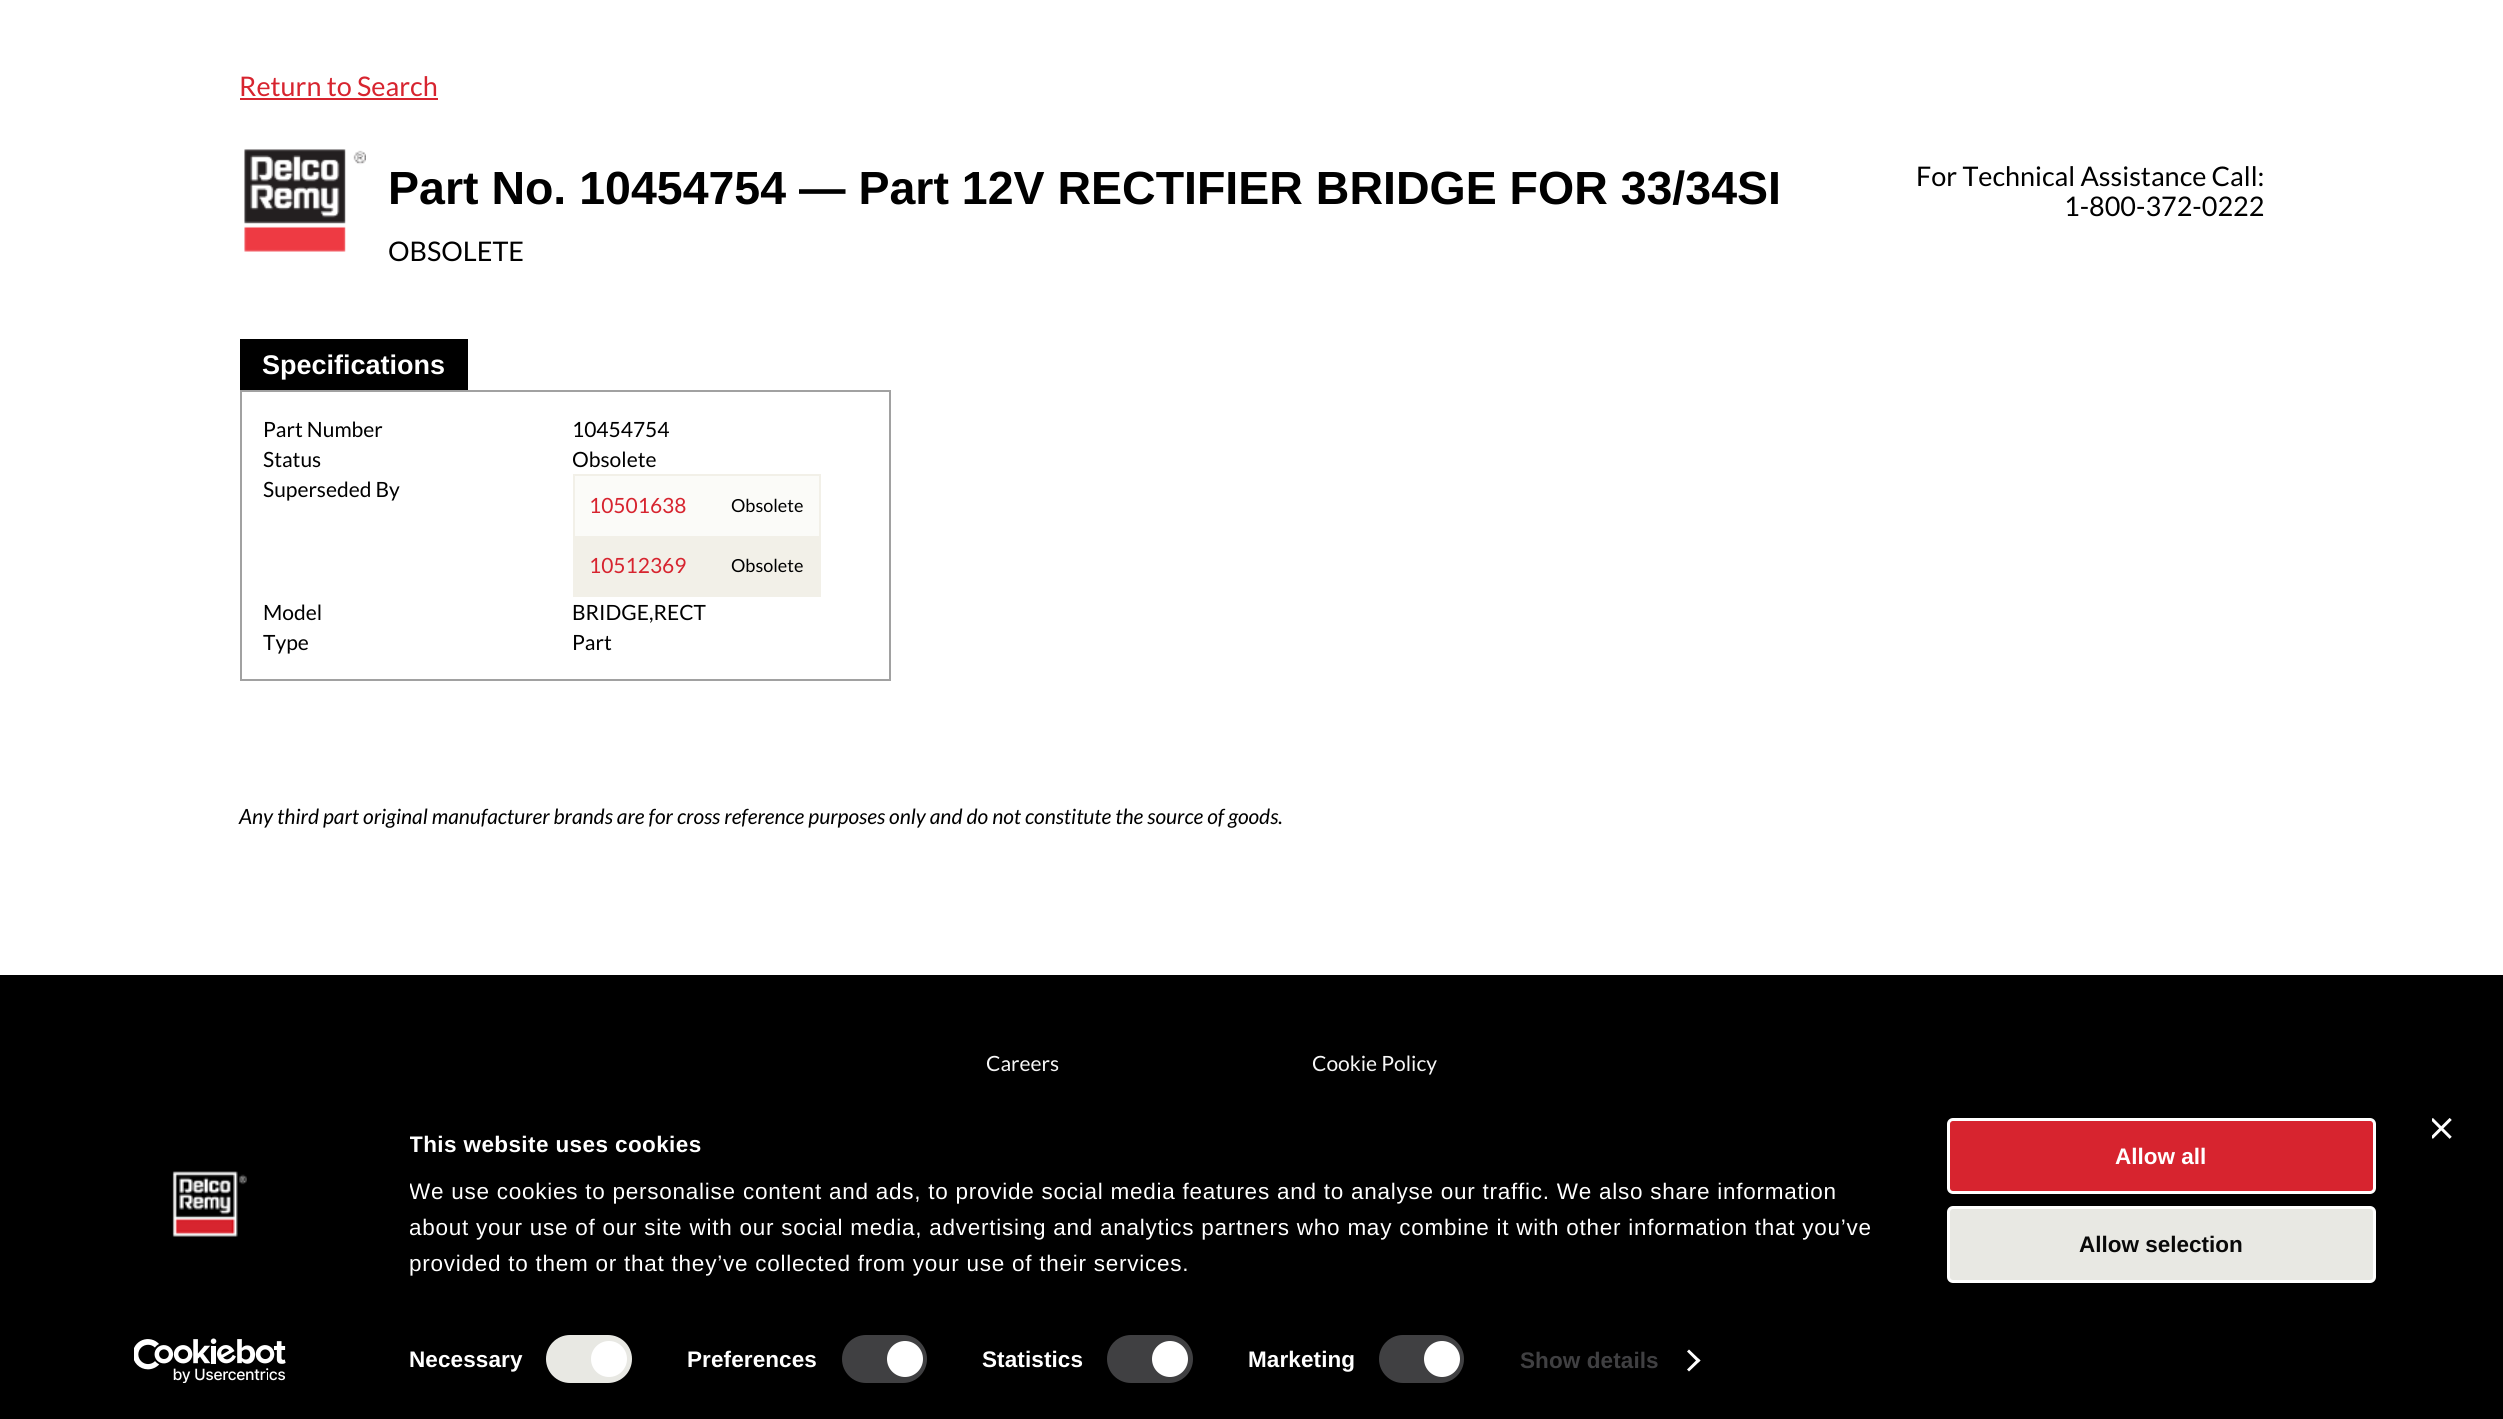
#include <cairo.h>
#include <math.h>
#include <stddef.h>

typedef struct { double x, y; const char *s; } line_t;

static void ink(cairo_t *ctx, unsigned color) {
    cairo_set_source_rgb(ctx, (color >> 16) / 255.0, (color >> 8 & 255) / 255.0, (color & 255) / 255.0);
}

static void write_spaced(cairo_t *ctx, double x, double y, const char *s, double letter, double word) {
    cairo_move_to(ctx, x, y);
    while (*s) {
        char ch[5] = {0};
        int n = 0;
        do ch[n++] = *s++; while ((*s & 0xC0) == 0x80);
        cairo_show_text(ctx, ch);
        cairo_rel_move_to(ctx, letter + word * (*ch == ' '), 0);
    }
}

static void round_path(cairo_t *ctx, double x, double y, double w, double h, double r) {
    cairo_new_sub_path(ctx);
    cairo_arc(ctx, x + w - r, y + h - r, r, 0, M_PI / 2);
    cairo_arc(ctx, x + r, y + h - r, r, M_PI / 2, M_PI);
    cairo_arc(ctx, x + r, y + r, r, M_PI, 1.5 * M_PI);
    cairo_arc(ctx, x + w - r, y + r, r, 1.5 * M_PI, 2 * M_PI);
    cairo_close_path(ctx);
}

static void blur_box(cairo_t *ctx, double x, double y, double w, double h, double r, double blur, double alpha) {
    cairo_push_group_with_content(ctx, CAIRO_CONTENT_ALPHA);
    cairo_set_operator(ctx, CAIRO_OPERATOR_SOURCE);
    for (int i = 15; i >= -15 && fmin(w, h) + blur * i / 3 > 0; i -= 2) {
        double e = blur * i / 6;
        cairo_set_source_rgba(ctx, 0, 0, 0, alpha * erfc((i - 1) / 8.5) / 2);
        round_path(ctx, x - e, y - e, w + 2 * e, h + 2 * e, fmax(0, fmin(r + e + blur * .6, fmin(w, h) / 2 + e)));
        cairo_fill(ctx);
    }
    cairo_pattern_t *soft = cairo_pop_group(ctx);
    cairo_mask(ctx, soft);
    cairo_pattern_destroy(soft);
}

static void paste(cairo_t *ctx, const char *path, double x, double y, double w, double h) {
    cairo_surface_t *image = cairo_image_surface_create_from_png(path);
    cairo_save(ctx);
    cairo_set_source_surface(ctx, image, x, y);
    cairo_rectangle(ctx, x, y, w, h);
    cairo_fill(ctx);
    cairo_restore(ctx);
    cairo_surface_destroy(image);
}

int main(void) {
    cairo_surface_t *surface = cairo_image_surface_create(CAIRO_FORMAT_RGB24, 2503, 1419);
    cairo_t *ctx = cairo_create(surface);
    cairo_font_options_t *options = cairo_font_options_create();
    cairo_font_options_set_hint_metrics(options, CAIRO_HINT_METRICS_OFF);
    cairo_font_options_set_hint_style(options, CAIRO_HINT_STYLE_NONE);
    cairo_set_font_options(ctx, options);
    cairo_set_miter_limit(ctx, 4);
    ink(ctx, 0xFFFFFF);
    cairo_paint(ctx);
    cairo_select_font_face(ctx, "Lato", CAIRO_FONT_SLANT_NORMAL, CAIRO_FONT_WEIGHT_NORMAL);
    cairo_set_font_size(ctx, 27);
    ink(ctx, 0xD7242F);
    cairo_move_to(ctx, 239, 96);
    cairo_show_text(ctx, "Return to Search");
    cairo_rectangle(ctx, 240, 98, 198, 2);
    cairo_fill(ctx);
    paste(ctx, "media/1.png", 244, 149, 122, 103);
    cairo_select_font_face(ctx, "Liberation Sans", CAIRO_FONT_SLANT_NORMAL, CAIRO_FONT_WEIGHT_BOLD);
    cairo_set_font_size(ctx, 46.5);
    ink(ctx, 0x000000);
    cairo_move_to(ctx, 388, 204);
    cairo_show_text(ctx, "Part No. 10454754 — Part 12V RECTIFIER BRIDGE FOR 33/34SI");
    cairo_select_font_face(ctx, "Lato", CAIRO_FONT_SLANT_NORMAL, CAIRO_FONT_WEIGHT_NORMAL);
    cairo_set_font_size(ctx, 27);
    {
        static const line_t items[] = {
            {388, 261, "OBSOLETE"},
            {1916, 186, "For Technical Assistance Call:"},
            {2064, 216, "1-800-372-0222"},
        };
        for (size_t i = 0; i < sizeof items / sizeof *items; i++) {
            cairo_move_to(ctx, items[i].x, items[i].y);
            cairo_show_text(ctx, items[i].s);
        }
    }
    cairo_rectangle(ctx, 240, 339, 228, 51);
    cairo_fill(ctx);
    cairo_select_font_face(ctx, "Liberation Sans", CAIRO_FONT_SLANT_NORMAL, CAIRO_FONT_WEIGHT_BOLD);
    ink(ctx, 0xFFFFFF);
    cairo_move_to(ctx, 262, 374);
    cairo_show_text(ctx, "Specifications");
    cairo_rectangle(ctx, 241, 391, 649, 289);
    ink(ctx, 0xA1A1A1);
    cairo_stroke(ctx);
    cairo_select_font_face(ctx, "Lato", CAIRO_FONT_SLANT_NORMAL, CAIRO_FONT_WEIGHT_NORMAL);
    cairo_set_font_size(ctx, 21);
    ink(ctx, 0x000000);
    {
        static const line_t items[] = {
            {263, 437, "Part Number"},
            {572, 437, "10454754"},
            {263, 467, "Status"},
            {572, 467, "Obsolete"},
            {263, 497, "Superseded By"},
        };
        for (size_t i = 0; i < sizeof items / sizeof *items; i++) {
            cairo_move_to(ctx, items[i].x, items[i].y);
            cairo_show_text(ctx, items[i].s);
        }
    }
    cairo_rectangle(ctx, 574, 475, 246, 121);
    ink(ctx, 0xF2F0E8);
    cairo_stroke(ctx);
    ink(ctx, 0xFBFBF8);
    cairo_rectangle(ctx, 575, 476, 244, 60);
    cairo_fill(ctx);
    ink(ctx, 0xD7242F);
    cairo_move_to(ctx, 589, 513);
    cairo_show_text(ctx, "10501638");
    cairo_set_font_size(ctx, 18);
    ink(ctx, 0x000000);
    cairo_move_to(ctx, 731, 512);
    cairo_show_text(ctx, "Obsolete");
    ink(ctx, 0xF2F0E8);
    cairo_rectangle(ctx, 575, 536, 244, 59);
    cairo_fill(ctx);
    cairo_set_font_size(ctx, 21);
    ink(ctx, 0xD7242F);
    cairo_move_to(ctx, 589, 573);
    cairo_show_text(ctx, "10512369");
    cairo_set_font_size(ctx, 18);
    ink(ctx, 0x000000);
    cairo_move_to(ctx, 731, 572);
    cairo_show_text(ctx, "Obsolete");
    cairo_set_font_size(ctx, 21);
    {
        static const line_t items[] = {
            {263, 620, "Model"},
            {572, 620, "BRIDGE,RECT"},
            {263, 650, "Type"},
            {572, 650, "Part"},
        };
        for (size_t i = 0; i < sizeof items / sizeof *items; i++) {
            cairo_move_to(ctx, items[i].x, items[i].y);
            cairo_show_text(ctx, items[i].s);
        }
    }
    cairo_select_font_face(ctx, "Lato", CAIRO_FONT_SLANT_ITALIC, CAIRO_FONT_WEIGHT_NORMAL);
    cairo_move_to(ctx, 239, 824);
    cairo_show_text(ctx, "Any third part original manufacturer brands are for cross reference purposes only and do not constitute the source of goods.");
    cairo_rectangle(ctx, 0, 975, 2503, 444);
    cairo_fill(ctx);
    cairo_select_font_face(ctx, "Lato", CAIRO_FONT_SLANT_NORMAL, CAIRO_FONT_WEIGHT_NORMAL);
    ink(ctx, 0xFFFFFF);
    cairo_move_to(ctx, 986, 1071);
    cairo_show_text(ctx, "Careers");
    cairo_move_to(ctx, 1312, 1071);
    cairo_show_text(ctx, "Cookie Policy");
    cairo_save(ctx);
    cairo_set_fill_rule(ctx, CAIRO_FILL_RULE_EVEN_ODD);
    cairo_new_path(ctx);
    cairo_move_to(ctx, 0, 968);
    cairo_line_to(ctx, 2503, 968);
    cairo_line_to(ctx, 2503, 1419);
    cairo_line_to(ctx, 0, 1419);
    cairo_close_path(ctx);
    cairo_move_to(ctx, 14, 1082);
    cairo_line_to(ctx, 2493, 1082);
    cairo_curve_to(ctx, 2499.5, 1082, 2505, 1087.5, 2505, 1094);
    cairo_line_to(ctx, 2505, 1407);
    cairo_curve_to(ctx, 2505, 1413.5, 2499.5, 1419, 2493, 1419);
    cairo_line_to(ctx, 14, 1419);
    cairo_curve_to(ctx, 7.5, 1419, 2, 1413.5, 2, 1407);
    cairo_line_to(ctx, 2, 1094);
    cairo_curve_to(ctx, 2, 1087.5, 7.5, 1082, 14, 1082);
    cairo_close_path(ctx);
    cairo_clip(ctx);
    ink(ctx, 0x000000);
    blur_box(ctx, 2, 1127, 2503, 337, 12, 52.5, 0.3);
    cairo_restore(ctx);
    paste(ctx, "media/2.png", 2432, 1118, 20, 21);
    paste(ctx, "media/3.png", 172, 1171, 75, 66);
    paste(ctx, "media/4.png", 134, 1338, 152, 45);
    cairo_save(ctx);
    cairo_rectangle(ctx, 410, 1127, 1495, 154);
    cairo_clip(ctx);
    cairo_select_font_face(ctx, "Liberation Sans", CAIRO_FONT_SLANT_NORMAL, CAIRO_FONT_WEIGHT_BOLD);
    cairo_set_font_size(ctx, 22.5);
    write_spaced(ctx, 409, 1152, "This website uses cookies", 0.4, 0);
    cairo_select_font_face(ctx, "Liberation Sans", CAIRO_FONT_SLANT_NORMAL, CAIRO_FONT_WEIGHT_NORMAL);
    write_spaced(ctx, 409, 1199, "We use cookies to personalise content and ads, to provide social media features and to analyse our traffic. We also share information", 0.75, 0);
    cairo_restore(ctx);
    cairo_select_font_face(ctx, "Liberation Sans", CAIRO_FONT_SLANT_NORMAL, CAIRO_FONT_WEIGHT_NORMAL);
    cairo_set_font_size(ctx, 22.5);
    write_spaced(ctx, 409, 1235, "about your use of our site with our social media, advertising and analytics partners who may combine it with other information that you’ve", 0.75, 0);
    write_spaced(ctx, 409, 1271, "provided to them or that they’ve collected from your use of their services.", 0.75, 0);
    cairo_select_font_face(ctx, "Liberation Sans", CAIRO_FONT_SLANT_NORMAL, CAIRO_FONT_WEIGHT_BOLD);
    write_spaced(ctx, 409, 1367, "Necessary", 0.1, 0);
    ink(ctx, 0xE8E8E3);
    round_path(ctx, 546, 1335, 86, 48, 24);
    cairo_fill(ctx);
    ink(ctx, 0xFFFFFF);
    cairo_arc(ctx, 609, 1359, 18, 0, 2 * M_PI);
    cairo_fill(ctx);
    write_spaced(ctx, 687, 1367, "Preferences", 0.1, 0);
    ink(ctx, 0x404042);
    round_path(ctx, 842, 1335, 85, 48, 24);
    cairo_fill(ctx);
    ink(ctx, 0xFFFFFF);
    cairo_arc(ctx, 905, 1359, 18, 0, 2 * M_PI);
    cairo_fill(ctx);
    write_spaced(ctx, 982, 1367, "Statistics", 0.1, 0);
    ink(ctx, 0x404042);
    round_path(ctx, 1107, 1335, 86, 48, 24);
    cairo_fill(ctx);
    ink(ctx, 0xFFFFFF);
    cairo_arc(ctx, 1170, 1359, 18, 0, 2 * M_PI);
    cairo_fill(ctx);
    write_spaced(ctx, 1248, 1367, "Marketing", 0.1, 0);
    ink(ctx, 0x404042);
    round_path(ctx, 1379, 1335, 85, 48, 24);
    cairo_fill(ctx);
    ink(ctx, 0xFFFFFF);
    cairo_arc(ctx, 1442, 1359, 18, 0, 2 * M_PI);
    cairo_fill(ctx);
    ink(ctx, 0x404042);
    write_spaced(ctx, 1520, 1368, "Show details", 0.1, 0);
    ink(ctx, 0xFFFFFF);
    cairo_new_path(ctx);
    cairo_move_to(ctx, 1689, 1349.5);
    cairo_line_to(ctx, 1700.5, 1360.5);
    cairo_line_to(ctx, 1698, 1362.5);
    cairo_line_to(ctx, 1687, 1351.5);
    cairo_close_path(ctx);
    cairo_fill(ctx);
    cairo_new_path(ctx);
    cairo_move_to(ctx, 1698, 1358.5);
    cairo_line_to(ctx, 1700.5, 1360.5);
    cairo_line_to(ctx, 1689, 1371.5);
    cairo_line_to(ctx, 1687, 1369.5);
    cairo_close_path(ctx);
    cairo_fill(ctx);
    ink(ctx, 0xD7242F);
    round_path(ctx, 1948.5, 1119.5, 426, 73, 4.5);
    cairo_fill_preserve(ctx);
    ink(ctx, 0xFFFFFF);
    cairo_set_line_width(ctx, 3);
    cairo_stroke(ctx);
    cairo_move_to(ctx, 2115, 1164);
    cairo_show_text(ctx, "Allow all");
    ink(ctx, 0xE8E8E3);
    round_path(ctx, 1948.5, 1207.5, 426, 74, 4.5);
    cairo_fill_preserve(ctx);
    ink(ctx, 0xFFFFFF);
    cairo_stroke(ctx);
    ink(ctx, 0x090909);
    cairo_move_to(ctx, 2079, 1252);
    cairo_show_text(ctx, "Allow selection");
    cairo_surface_write_to_png(surface, "image.png");
    cairo_font_options_destroy(options);
    cairo_destroy(ctx);
    cairo_surface_destroy(surface);
    return 0;
}
